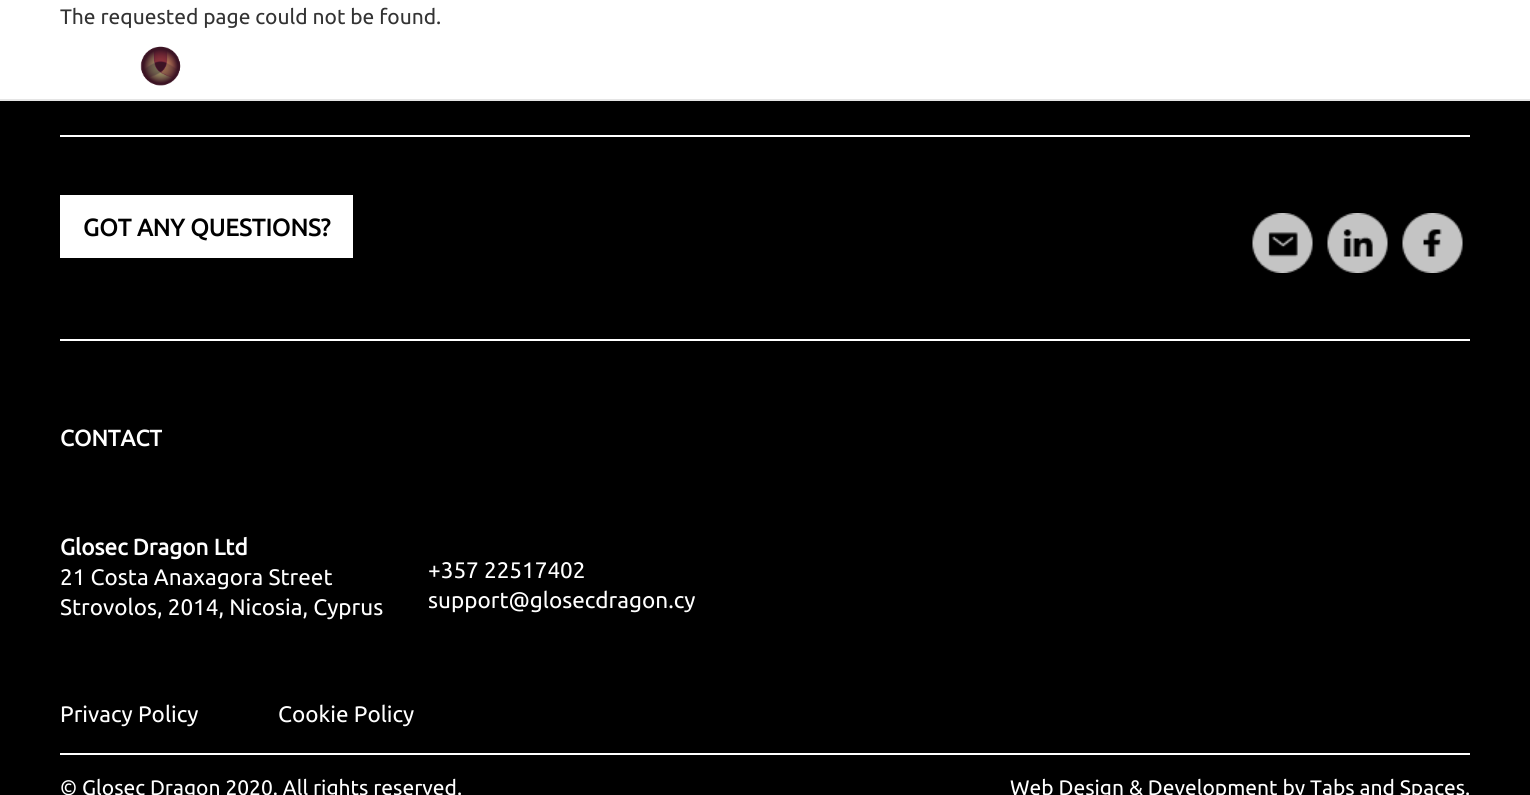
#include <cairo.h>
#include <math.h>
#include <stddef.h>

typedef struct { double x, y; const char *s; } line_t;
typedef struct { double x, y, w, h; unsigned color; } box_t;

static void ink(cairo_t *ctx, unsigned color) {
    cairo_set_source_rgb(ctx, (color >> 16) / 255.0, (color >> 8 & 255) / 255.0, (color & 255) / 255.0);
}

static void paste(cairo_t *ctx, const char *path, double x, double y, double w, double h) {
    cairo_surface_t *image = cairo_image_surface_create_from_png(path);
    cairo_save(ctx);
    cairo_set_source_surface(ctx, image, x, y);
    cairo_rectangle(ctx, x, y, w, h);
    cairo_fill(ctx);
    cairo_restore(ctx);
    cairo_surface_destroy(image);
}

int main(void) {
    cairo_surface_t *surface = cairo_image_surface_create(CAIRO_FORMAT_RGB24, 1530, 795);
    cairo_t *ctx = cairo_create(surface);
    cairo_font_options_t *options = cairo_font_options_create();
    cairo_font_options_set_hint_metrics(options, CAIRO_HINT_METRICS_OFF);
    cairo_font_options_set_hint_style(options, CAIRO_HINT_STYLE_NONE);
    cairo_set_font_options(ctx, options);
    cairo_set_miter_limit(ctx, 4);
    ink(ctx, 0xFFFFFF);
    cairo_paint(ctx);
    cairo_select_font_face(ctx, "Ubuntu", CAIRO_FONT_SLANT_NORMAL, CAIRO_FONT_WEIGHT_NORMAL);
    cairo_set_font_size(ctx, 21);
    ink(ctx, 0x333333);
    cairo_move_to(ctx, 60, 24);
    cairo_show_text(ctx, "The requested page could not be found.");
    paste(ctx, "media/1.png", 140, 46, 41, 40);
    {
        static const box_t items[] = {
            {0, 101, 1530, 694, 0x000000},
            {60, 135, 1410, 2, 0xFFFFFF},
            {0, 99, 1530, 2, 0xE5E5E5},
            {60, 339, 1410, 2, 0xFFFFFF},
            {60, 195, 293, 63, 0xFFFFFF},
        };
        for (size_t i = 0; i < sizeof items / sizeof *items; i++) {
            ink(ctx, items[i].color);
            cairo_rectangle(ctx, items[i].x, items[i].y, items[i].w, items[i].h);
            cairo_fill(ctx);
        }
    }
    cairo_select_font_face(ctx, "Ubuntu", CAIRO_FONT_SLANT_NORMAL, CAIRO_FONT_WEIGHT_BOLD);
    cairo_set_font_size(ctx, 24);
    ink(ctx, 0x000000);
    cairo_move_to(ctx, 83, 236);
    cairo_show_text(ctx, "GOT ANY QUESTIONS?");
    paste(ctx, "media/2.png", 1252, 213, 61, 60);
    paste(ctx, "media/3.png", 1327, 213, 61, 60);
    paste(ctx, "media/4.png", 1402, 213, 61, 60);
    cairo_set_font_size(ctx, 22.5);
    ink(ctx, 0xFFFFFF);
    cairo_move_to(ctx, 60, 446);
    cairo_show_text(ctx, "CONTACT");
    cairo_move_to(ctx, 60, 555);
    cairo_show_text(ctx, "Glosec Dragon Ltd");
    cairo_select_font_face(ctx, "Ubuntu", CAIRO_FONT_SLANT_NORMAL, CAIRO_FONT_WEIGHT_NORMAL);
    {
        static const line_t items[] = {
            {60, 585, "21 Costa Anaxagora Street"},
            {60, 615, "Strovolos, 2014, Nicosia, Cyprus"},
            {428, 578, "+357 22517402"},
            {428, 608, "support@glosecdragon.cy"},
        };
        for (size_t i = 0; i < sizeof items / sizeof *items; i++) {
            cairo_move_to(ctx, items[i].x, items[i].y);
            cairo_show_text(ctx, items[i].s);
        }
    }
    cairo_rectangle(ctx, 60, 753, 1410, 2);
    cairo_fill(ctx);
    cairo_move_to(ctx, 60, 722);
    cairo_show_text(ctx, "Privacy Policy");
    cairo_move_to(ctx, 278, 722);
    cairo_show_text(ctx, "Cookie Policy");
    cairo_set_font_size(ctx, 21);
    cairo_move_to(ctx, 60, 795);
    cairo_show_text(ctx, "© Glosec Dragon 2020. All rights reserved.");
    cairo_move_to(ctx, 1010, 795);
    cairo_show_text(ctx, "Web Design & Development by Tabs and Spaces.");
    cairo_surface_write_to_png(surface, "image.png");
    cairo_font_options_destroy(options);
    cairo_destroy(ctx);
    cairo_surface_destroy(surface);
    return 0;
}
